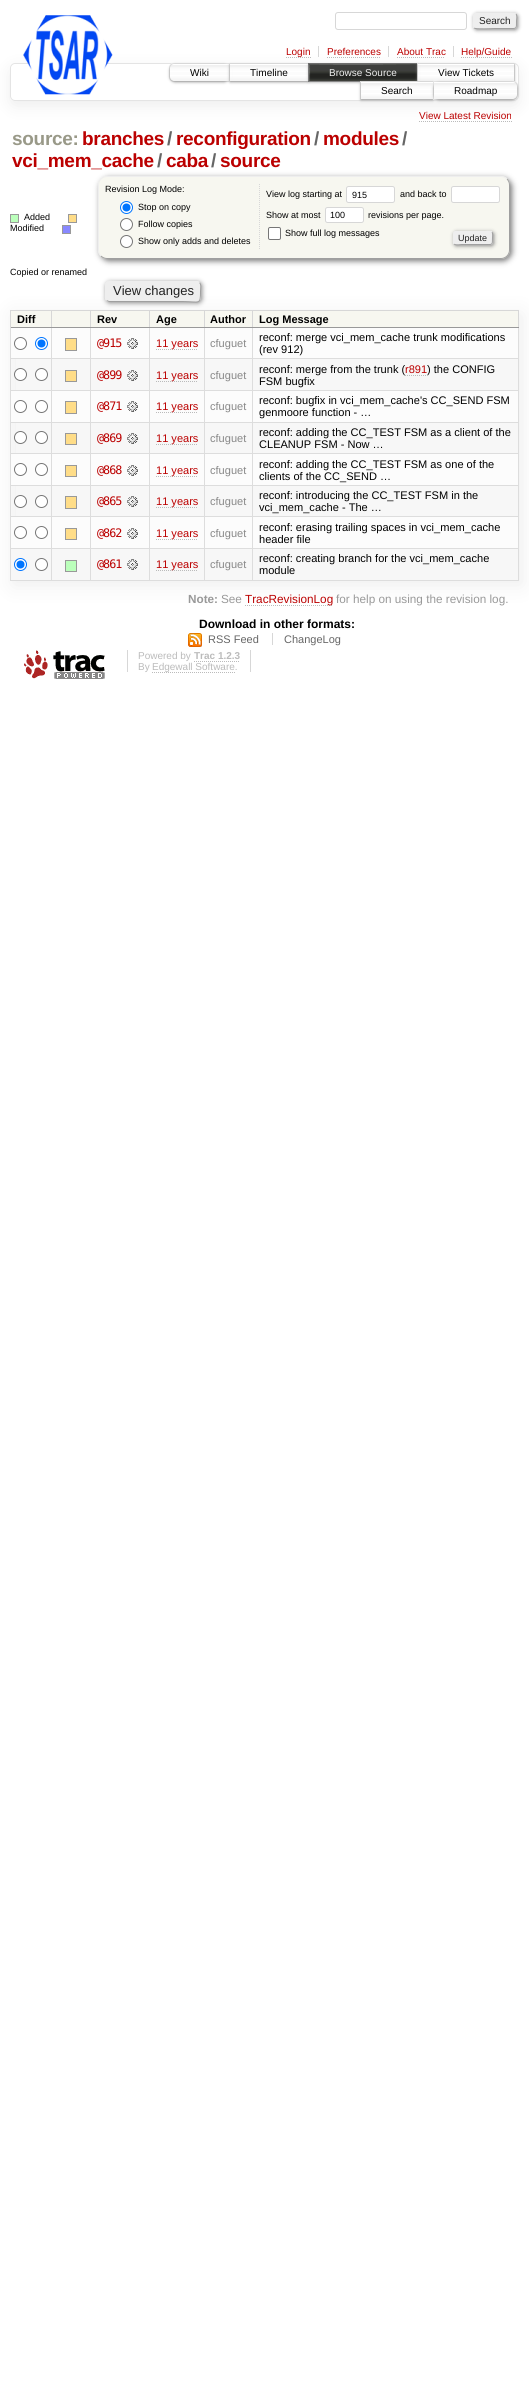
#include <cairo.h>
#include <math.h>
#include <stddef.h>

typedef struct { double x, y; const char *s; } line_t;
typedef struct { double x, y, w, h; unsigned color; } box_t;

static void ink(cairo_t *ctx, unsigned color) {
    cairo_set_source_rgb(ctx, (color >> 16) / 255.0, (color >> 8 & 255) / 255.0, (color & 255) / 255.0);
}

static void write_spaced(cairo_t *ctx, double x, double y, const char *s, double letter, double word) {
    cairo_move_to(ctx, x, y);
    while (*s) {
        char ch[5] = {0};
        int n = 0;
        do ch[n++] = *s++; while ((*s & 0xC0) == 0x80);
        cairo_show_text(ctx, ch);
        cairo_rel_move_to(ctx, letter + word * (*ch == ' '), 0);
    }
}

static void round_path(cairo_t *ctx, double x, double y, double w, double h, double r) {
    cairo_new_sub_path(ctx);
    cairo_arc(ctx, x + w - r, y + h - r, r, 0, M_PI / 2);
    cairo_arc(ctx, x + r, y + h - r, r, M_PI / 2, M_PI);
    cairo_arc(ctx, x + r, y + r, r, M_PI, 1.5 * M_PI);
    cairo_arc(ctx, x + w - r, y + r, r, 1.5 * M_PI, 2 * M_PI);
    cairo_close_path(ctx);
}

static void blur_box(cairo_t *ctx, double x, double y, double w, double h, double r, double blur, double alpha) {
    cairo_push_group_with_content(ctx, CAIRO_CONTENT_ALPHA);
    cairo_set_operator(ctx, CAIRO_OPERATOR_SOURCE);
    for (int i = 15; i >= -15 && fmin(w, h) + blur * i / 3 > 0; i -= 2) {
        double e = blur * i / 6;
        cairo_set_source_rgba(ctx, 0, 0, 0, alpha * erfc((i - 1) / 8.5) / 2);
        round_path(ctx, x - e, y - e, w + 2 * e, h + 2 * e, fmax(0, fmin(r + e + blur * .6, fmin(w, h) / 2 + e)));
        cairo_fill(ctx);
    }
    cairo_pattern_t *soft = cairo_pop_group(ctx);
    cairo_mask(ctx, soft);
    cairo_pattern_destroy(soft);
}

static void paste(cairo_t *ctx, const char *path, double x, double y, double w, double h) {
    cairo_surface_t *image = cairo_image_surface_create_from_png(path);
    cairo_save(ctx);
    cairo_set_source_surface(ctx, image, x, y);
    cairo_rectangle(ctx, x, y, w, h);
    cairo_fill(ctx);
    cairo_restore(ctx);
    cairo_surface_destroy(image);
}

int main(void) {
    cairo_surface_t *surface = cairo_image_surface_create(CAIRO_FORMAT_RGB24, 529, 2406);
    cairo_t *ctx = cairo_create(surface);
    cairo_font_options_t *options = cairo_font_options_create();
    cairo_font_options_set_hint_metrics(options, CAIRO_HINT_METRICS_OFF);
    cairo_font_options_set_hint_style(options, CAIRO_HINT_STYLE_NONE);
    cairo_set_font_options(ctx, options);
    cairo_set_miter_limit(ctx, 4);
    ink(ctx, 0xFFFFFF);
    cairo_paint(ctx);
    cairo_save(ctx);
    cairo_set_fill_rule(ctx, CAIRO_FILL_RULE_EVEN_ODD);
    cairo_new_path(ctx);
    cairo_move_to(ctx, 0, 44);
    cairo_line_to(ctx, 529, 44);
    cairo_line_to(ctx, 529, 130);
    cairo_line_to(ctx, 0, 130);
    cairo_close_path(ctx);
    cairo_move_to(ctx, 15, 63);
    cairo_line_to(ctx, 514, 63);
    cairo_curve_to(ctx, 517, 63, 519, 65, 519, 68);
    cairo_line_to(ctx, 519, 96);
    cairo_curve_to(ctx, 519, 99, 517, 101, 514, 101);
    cairo_line_to(ctx, 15, 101);
    cairo_curve_to(ctx, 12, 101, 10, 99, 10, 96);
    cairo_line_to(ctx, 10, 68);
    cairo_curve_to(ctx, 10, 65, 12, 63, 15, 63);
    cairo_close_path(ctx);
    cairo_clip(ctx);
    ink(ctx, 0xEEEEEE);
    blur_box(ctx, 10, 68, 509, 38, 5, 7.5, 1);
    cairo_restore(ctx);
    round_path(ctx, 10.5, 63.5, 508, 37, 4.5);
    ink(ctx, 0xE4E4E4);
    cairo_set_line_width(ctx, 1);
    cairo_stroke(ctx);
    paste(ctx, "media/1.png", 23, 15, 90, 80);
    round_path(ctx, 335.5, 12.5, 131, 17, 2.5);
    ink(ctx, 0xD7D7D7);
    cairo_stroke(ctx);
    ink(ctx, 0x888888);
    blur_box(ctx, 474, 14, 44, 16, 3, 2, 1);
    ink(ctx, 0xEEEEEE);
    round_path(ctx, 473, 13, 44, 16, 3);
    cairo_fill(ctx);
    cairo_new_path(ctx);
    cairo_move_to(ctx, 516, 14);
    cairo_curve_to(ctx, 517.5, 16, 516.5, 19, 516.5, 21);
    cairo_curve_to(ctx, 516.5, 29.5, 517, 28.5, 507.5, 28.5);
    cairo_line_to(ctx, 495, 28.5);
    cairo_curve_to(ctx, 492, 28.5, 476, 29.5, 474, 28);
    ink(ctx, 0x9F9F9F);
    cairo_stroke(ctx);
    cairo_new_path(ctx);
    cairo_move_to(ctx, 474, 28);
    cairo_curve_to(ctx, 472.5, 26, 473.5, 23, 473.5, 21);
    cairo_curve_to(ctx, 473.5, 12.5, 473, 13.5, 482.5, 13.5);
    cairo_line_to(ctx, 495, 13.5);
    cairo_curve_to(ctx, 498, 13.5, 514, 12.5, 516, 14);
    ink(ctx, 0xEEEEEE);
    cairo_stroke(ctx);
    cairo_select_font_face(ctx, "Liberation Sans", CAIRO_FONT_SLANT_NORMAL, CAIRO_FONT_WEIGHT_NORMAL);
    cairo_set_font_size(ctx, 10);
    ink(ctx, 0x222222);
    cairo_move_to(ctx, 479, 24);
    cairo_show_text(ctx, "Search");
    ink(ctx, 0xD7D7D7);
    cairo_rectangle(ctx, 318, 46, 1, 11);
    cairo_fill(ctx);
    cairo_new_path(ctx);
    cairo_move_to(ctx, 286, 57.5);
    cairo_line_to(ctx, 311, 57.5);
    ink(ctx, 0xBBBBBB);
    cairo_set_dash(ctx, (double[]){1, 1}, 2, 0);
    cairo_stroke(ctx);
    ink(ctx, 0xBB0000);
    cairo_move_to(ctx, 286, 55);
    cairo_show_text(ctx, "Login");
    ink(ctx, 0xD7D7D7);
    cairo_rectangle(ctx, 388, 46, 1, 11);
    cairo_fill(ctx);
    ink(ctx, 0xBB0000);
    cairo_move_to(ctx, 327, 55);
    cairo_show_text(ctx, "Preferences");
    cairo_new_path(ctx);
    cairo_move_to(ctx, 327, 57.5);
    cairo_line_to(ctx, 381, 57.5);
    ink(ctx, 0xBBBBBB);
    cairo_stroke(ctx);
    ink(ctx, 0xD7D7D7);
    cairo_rectangle(ctx, 453, 46, 1, 11);
    cairo_fill(ctx);
    ink(ctx, 0xBB0000);
    cairo_move_to(ctx, 397, 55);
    cairo_show_text(ctx, "About Trac");
    cairo_new_path(ctx);
    cairo_move_to(ctx, 397, 57.5);
    cairo_line_to(ctx, 445, 57.5);
    ink(ctx, 0xBBBBBB);
    cairo_stroke(ctx);
    cairo_new_path(ctx);
    cairo_move_to(ctx, 461, 57.5);
    cairo_line_to(ctx, 512, 57.5);
    cairo_stroke(ctx);
    ink(ctx, 0xBB0000);
    cairo_move_to(ctx, 461, 55);
    cairo_show_text(ctx, "Help/Guide");
    ink(ctx, 0xFFFFFF);
    cairo_new_path(ctx);
    cairo_move_to(ctx, 174, 63);
    cairo_line_to(ctx, 230, 63);
    cairo_line_to(ctx, 230, 82);
    cairo_line_to(ctx, 174, 82);
    cairo_curve_to(ctx, 171, 82, 169, 80, 169, 77);
    cairo_line_to(ctx, 169, 68);
    cairo_curve_to(ctx, 169, 65, 171, 63, 174, 63);
    cairo_close_path(ctx);
    cairo_fill(ctx);
    paste(ctx, "media/2.png", 169, 65, 60, 17);
    cairo_new_path(ctx);
    cairo_move_to(ctx, 174, 63.5);
    cairo_line_to(ctx, 229.5, 63.5);
    cairo_line_to(ctx, 229.5, 81.5);
    cairo_line_to(ctx, 174, 81.5);
    cairo_curve_to(ctx, 171.5, 81.5, 169.5, 79.5, 169.5, 77);
    cairo_line_to(ctx, 169.5, 68);
    cairo_curve_to(ctx, 169.5, 65.5, 171.5, 63.5, 174, 63.5);
    cairo_close_path(ctx);
    ink(ctx, 0xE4E4E4);
    cairo_set_dash(ctx, NULL, 0, 0);
    cairo_stroke(ctx);
    cairo_save(ctx);
    cairo_set_fill_rule(ctx, CAIRO_FILL_RULE_EVEN_ODD);
    cairo_new_path(ctx);
    cairo_move_to(ctx, 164, 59);
    cairo_line_to(ctx, 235, 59);
    cairo_line_to(ctx, 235, 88);
    cairo_line_to(ctx, 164, 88);
    cairo_close_path(ctx);
    cairo_move_to(ctx, 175, 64);
    cairo_line_to(ctx, 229, 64);
    cairo_line_to(ctx, 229, 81);
    cairo_line_to(ctx, 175, 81);
    cairo_curve_to(ctx, 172, 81, 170, 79, 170, 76);
    cairo_line_to(ctx, 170, 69);
    cairo_curve_to(ctx, 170, 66, 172, 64, 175, 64);
    cairo_close_path(ctx);
    cairo_clip(ctx);
    ink(ctx, 0x999999);
    blur_box(ctx, 170, 65, 59, 17, 5, 1.5, 1);
    cairo_restore(ctx);
    ink(ctx, 0x000000);
    cairo_move_to(ctx, 190, 76);
    cairo_show_text(ctx, "Wiki");
    ink(ctx, 0xFFFFFF);
    cairo_rectangle(ctx, 230, 66, 2, 15);
    cairo_fill(ctx);
    paste(ctx, "media/3.png", 230, 65, 78, 16);
    cairo_rectangle(ctx, 229.5, 63.5, 79, 18);
    ink(ctx, 0xE4E4E4);
    cairo_stroke(ctx);
    cairo_save(ctx);
    cairo_set_fill_rule(ctx, CAIRO_FILL_RULE_EVEN_ODD);
    cairo_new_path(ctx);
    cairo_move_to(ctx, 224, 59);
    cairo_line_to(ctx, 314, 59);
    cairo_line_to(ctx, 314, 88);
    cairo_line_to(ctx, 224, 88);
    cairo_close_path(ctx);
    cairo_move_to(ctx, 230, 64);
    cairo_line_to(ctx, 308, 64);
    cairo_line_to(ctx, 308, 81);
    cairo_line_to(ctx, 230, 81);
    cairo_close_path(ctx);
    cairo_clip(ctx);
    ink(ctx, 0x999999);
    blur_box(ctx, 230, 65, 78, 17, 0, 1.5, 1);
    cairo_restore(ctx);
    ink(ctx, 0x000000);
    cairo_move_to(ctx, 250, 76);
    cairo_show_text(ctx, "Timeline");
    cairo_rectangle(ctx, 308.5, 63.5, 109, 18);
    ink(ctx, 0x666666);
    cairo_stroke(ctx);
    ink(ctx, 0x999999);
    blur_box(ctx, 309, 65, 108, 17, 0, 1.5, 1);
    ink(ctx, 0x000000);
    cairo_rectangle(ctx, 309, 64, 108, 17);
    cairo_fill(ctx);
    paste(ctx, "media/4.png", 309, 64, 108, 17);
    ink(ctx, 0xEEEEEE);
    cairo_move_to(ctx, 329, 76);
    cairo_show_text(ctx, "Browse Source");
    ink(ctx, 0xFFFFFF);
    cairo_rectangle(ctx, 418, 64, 2, 17);
    cairo_fill(ctx);
    paste(ctx, "media/5.png", 418, 65, 96, 16);
    cairo_rectangle(ctx, 417.5, 63.5, 97, 18);
    ink(ctx, 0xE4E4E4);
    cairo_stroke(ctx);
    cairo_save(ctx);
    cairo_set_fill_rule(ctx, CAIRO_FILL_RULE_EVEN_ODD);
    cairo_new_path(ctx);
    cairo_move_to(ctx, 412, 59);
    cairo_line_to(ctx, 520, 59);
    cairo_line_to(ctx, 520, 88);
    cairo_line_to(ctx, 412, 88);
    cairo_close_path(ctx);
    cairo_move_to(ctx, 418, 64);
    cairo_line_to(ctx, 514, 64);
    cairo_line_to(ctx, 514, 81);
    cairo_line_to(ctx, 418, 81);
    cairo_close_path(ctx);
    cairo_clip(ctx);
    ink(ctx, 0x999999);
    blur_box(ctx, 418, 65, 96, 17, 0, 1.5, 1);
    cairo_restore(ctx);
    ink(ctx, 0x000000);
    cairo_move_to(ctx, 438, 76);
    cairo_show_text(ctx, "View Tickets");
    ink(ctx, 0xFFFFFF);
    cairo_rectangle(ctx, 361, 82, 72, 3);
    cairo_fill(ctx);
    paste(ctx, "media/6.png", 361, 83, 72, 16);
    cairo_rectangle(ctx, 360.5, 81.5, 73, 18);
    ink(ctx, 0xE4E4E4);
    cairo_stroke(ctx);
    cairo_save(ctx);
    cairo_set_fill_rule(ctx, CAIRO_FILL_RULE_EVEN_ODD);
    cairo_new_path(ctx);
    cairo_move_to(ctx, 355, 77);
    cairo_line_to(ctx, 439, 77);
    cairo_line_to(ctx, 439, 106);
    cairo_line_to(ctx, 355, 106);
    cairo_close_path(ctx);
    cairo_move_to(ctx, 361, 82);
    cairo_line_to(ctx, 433, 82);
    cairo_line_to(ctx, 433, 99);
    cairo_line_to(ctx, 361, 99);
    cairo_close_path(ctx);
    cairo_clip(ctx);
    ink(ctx, 0x999999);
    blur_box(ctx, 361, 83, 72, 17, 0, 1.5, 1);
    cairo_restore(ctx);
    ink(ctx, 0x000000);
    cairo_move_to(ctx, 381, 94);
    cairo_show_text(ctx, "Search");
    ink(ctx, 0xFFFFFF);
    cairo_new_path(ctx);
    cairo_move_to(ctx, 433, 81);
    cairo_line_to(ctx, 513, 81);
    cairo_curve_to(ctx, 516, 81, 518, 83, 518, 86);
    cairo_line_to(ctx, 518, 95);
    cairo_curve_to(ctx, 518, 98, 516, 100, 513, 100);
    cairo_line_to(ctx, 433, 100);
    cairo_close_path(ctx);
    cairo_fill(ctx);
    paste(ctx, "media/7.png", 434, 83, 84, 17);
    cairo_new_path(ctx);
    cairo_move_to(ctx, 433.5, 81.5);
    cairo_line_to(ctx, 513, 81.5);
    cairo_curve_to(ctx, 515.5, 81.5, 517.5, 83.5, 517.5, 86);
    cairo_line_to(ctx, 517.5, 95);
    cairo_curve_to(ctx, 517.5, 97.5, 515.5, 99.5, 513, 99.5);
    cairo_line_to(ctx, 433.5, 99.5);
    cairo_close_path(ctx);
    ink(ctx, 0xE4E4E4);
    cairo_stroke(ctx);
    cairo_save(ctx);
    cairo_set_fill_rule(ctx, CAIRO_FILL_RULE_EVEN_ODD);
    cairo_new_path(ctx);
    cairo_move_to(ctx, 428, 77);
    cairo_line_to(ctx, 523, 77);
    cairo_line_to(ctx, 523, 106);
    cairo_line_to(ctx, 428, 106);
    cairo_close_path(ctx);
    cairo_move_to(ctx, 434, 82);
    cairo_line_to(ctx, 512, 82);
    cairo_curve_to(ctx, 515, 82, 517, 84, 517, 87);
    cairo_line_to(ctx, 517, 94);
    cairo_curve_to(ctx, 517, 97, 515, 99, 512, 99);
    cairo_line_to(ctx, 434, 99);
    cairo_close_path(ctx);
    cairo_clip(ctx);
    ink(ctx, 0x999999);
    blur_box(ctx, 434, 83, 83, 17, 5, 1.5, 1);
    cairo_restore(ctx);
    ink(ctx, 0x000000);
    cairo_move_to(ctx, 454, 94);
    cairo_show_text(ctx, "Roadmap");
    ink(ctx, 0xBB0000);
    cairo_move_to(ctx, 419, 119);
    cairo_show_text(ctx, "View Latest Revision");
    cairo_new_path(ctx);
    cairo_move_to(ctx, 419, 121.5);
    cairo_line_to(ctx, 512, 121.5);
    ink(ctx, 0xBBBBBB);
    cairo_set_dash(ctx, (double[]){1, 1}, 2, 0);
    cairo_stroke(ctx);
    cairo_select_font_face(ctx, "Liberation Sans", CAIRO_FONT_SLANT_NORMAL, CAIRO_FONT_WEIGHT_BOLD);
    cairo_set_font_size(ctx, 19);
    ink(ctx, 0x999988);
    write_spaced(ctx, 12, 145, "source:", -0.3, 0);
    ink(ctx, 0xBB0000);
    write_spaced(ctx, 82, 145, "branches", -0.3, 0);
    ink(ctx, 0x666666);
    write_spaced(ctx, 167, 145, "/", -0.3, 0);
    ink(ctx, 0xBB0000);
    write_spaced(ctx, 176, 145, "reconfiguration", -0.3, 0);
    ink(ctx, 0x666666);
    write_spaced(ctx, 314, 145, "/", -0.3, 0);
    ink(ctx, 0xBB0000);
    write_spaced(ctx, 323, 145, "modules", -0.3, 0);
    ink(ctx, 0x666666);
    write_spaced(ctx, 402, 145, "/", -0.3, 0);
    ink(ctx, 0xBB0000);
    write_spaced(ctx, 12, 167, "vci_mem_cache", -0.3, 0);
    ink(ctx, 0x666666);
    write_spaced(ctx, 157, 167, "/", -0.3, 0);
    ink(ctx, 0xBB0000);
    write_spaced(ctx, 166, 167, "caba", -0.3, 0);
    ink(ctx, 0x666666);
    write_spaced(ctx, 211, 167, "/", -0.3, 0);
    ink(ctx, 0xBB0000);
    write_spaced(ctx, 220, 167, "source", -0.3, 0);
    ink(ctx, 0xBBFFBB);
    cairo_rectangle(ctx, 10.5, 214.5, 8, 8);
    cairo_fill_preserve(ctx);
    ink(ctx, 0x999999);
    cairo_set_dash(ctx, NULL, 0, 0);
    cairo_stroke(ctx);
    cairo_select_font_face(ctx, "Liberation Sans", CAIRO_FONT_SLANT_NORMAL, CAIRO_FONT_WEIGHT_NORMAL);
    cairo_set_font_size(ctx, 9);
    ink(ctx, 0x000000);
    cairo_move_to(ctx, 24, 220);
    cairo_show_text(ctx, "Added");
    ink(ctx, 0xFFDD88);
    cairo_rectangle(ctx, 68.5, 214.5, 8, 8);
    cairo_fill_preserve(ctx);
    ink(ctx, 0x999999);
    cairo_stroke(ctx);
    ink(ctx, 0x000000);
    cairo_move_to(ctx, 10, 231);
    cairo_show_text(ctx, "Modified");
    ink(ctx, 0x8888FF);
    cairo_rectangle(ctx, 62.5, 225.5, 8, 8);
    cairo_fill_preserve(ctx);
    ink(ctx, 0x999999);
    cairo_stroke(ctx);
    ink(ctx, 0x000000);
    cairo_move_to(ctx, 10, 275);
    cairo_show_text(ctx, "Copied or renamed");
    ink(ctx, 0x777777);
    blur_box(ctx, 100, 178, 412, 83, 9, 3, 1);
    ink(ctx, 0xF7F7F0);
    round_path(ctx, 98, 176, 412, 83, 9);
    cairo_fill(ctx);
    cairo_new_path(ctx);
    cairo_move_to(ctx, 507, 179);
    cairo_curve_to(ctx, 508.5, 180.5, 509.5, 182.5, 509.5, 185);
    cairo_line_to(ctx, 509.5, 250);
    cairo_curve_to(ctx, 509.5, 252.5, 508.5, 254.5, 507, 256);
    cairo_curve_to(ctx, 505.5, 257.5, 503.5, 258.5, 501, 258.5);
    cairo_line_to(ctx, 107, 258.5);
    cairo_curve_to(ctx, 104.5, 258.5, 102.5, 257.5, 101, 256);
    ink(ctx, 0x9F9F9F);
    cairo_stroke(ctx);
    cairo_new_path(ctx);
    cairo_move_to(ctx, 101, 256);
    cairo_curve_to(ctx, 99.5, 254.5, 98.5, 252.5, 98.5, 250);
    cairo_line_to(ctx, 98.5, 185);
    cairo_curve_to(ctx, 98.5, 182.5, 99.5, 180.5, 101, 179);
    cairo_curve_to(ctx, 102.5, 177.5, 104.5, 176.5, 107, 176.5);
    cairo_line_to(ctx, 501, 176.5);
    cairo_curve_to(ctx, 503.5, 176.5, 505.5, 177.5, 507, 179);
    ink(ctx, 0xEEEEEE);
    cairo_stroke(ctx);
    cairo_new_path(ctx);
    cairo_move_to(ctx, 259.5, 184);
    cairo_line_to(ctx, 259.5, 250);
    ink(ctx, 0xD7D7D7);
    cairo_set_dash(ctx, (double[]){1, 1}, 2, 0);
    cairo_stroke(ctx);
    ink(ctx, 0x000000);
    cairo_move_to(ctx, 105, 192);
    cairo_show_text(ctx, "Revision Log Mode:");
    ink(ctx, 0xFFFFFF);
    cairo_new_path(ctx);
    cairo_arc(ctx, 126.5, 207.5, 6, 0, 2 * M_PI);
    cairo_fill_preserve(ctx);
    ink(ctx, 0x0075FF);
    cairo_set_dash(ctx, NULL, 0, 0);
    cairo_stroke(ctx);
    cairo_arc(ctx, 126.5, 207.5, 4, 0, 2 * M_PI);
    cairo_fill(ctx);
    ink(ctx, 0x000000);
    cairo_move_to(ctx, 138, 210);
    cairo_show_text(ctx, "Stop on copy");
    ink(ctx, 0xFFFFFF);
    cairo_new_path(ctx);
    cairo_arc(ctx, 126.5, 224.5, 6, 0, 2 * M_PI);
    cairo_fill_preserve(ctx);
    ink(ctx, 0x767676);
    cairo_stroke(ctx);
    ink(ctx, 0x000000);
    cairo_move_to(ctx, 138, 227);
    cairo_show_text(ctx, "Follow copies");
    ink(ctx, 0xFFFFFF);
    cairo_new_path(ctx);
    cairo_arc(ctx, 126.5, 241.5, 6, 0, 2 * M_PI);
    cairo_fill_preserve(ctx);
    ink(ctx, 0x767676);
    cairo_stroke(ctx);
    ink(ctx, 0x000000);
    cairo_move_to(ctx, 138, 244);
    cairo_show_text(ctx, "Show only adds and deletes");
    cairo_move_to(ctx, 266, 197);
    cairo_show_text(ctx, "View log starting at");
    ink(ctx, 0xFFFFFF);
    round_path(ctx, 346.5, 186.5, 48, 16, 2);
    cairo_fill_preserve(ctx);
    ink(ctx, 0xD7D7D7);
    cairo_stroke(ctx);
    ink(ctx, 0x000000);
    cairo_move_to(ctx, 352, 198);
    cairo_show_text(ctx, "915");
    cairo_move_to(ctx, 400, 197);
    cairo_show_text(ctx, "and back to");
    ink(ctx, 0xFFFFFF);
    round_path(ctx, 451.5, 186.5, 48, 16, 2);
    cairo_fill_preserve(ctx);
    ink(ctx, 0xD7D7D7);
    cairo_stroke(ctx);
    ink(ctx, 0x000000);
    cairo_move_to(ctx, 266, 218);
    cairo_show_text(ctx, "Show at most");
    ink(ctx, 0xFFFFFF);
    round_path(ctx, 325.5, 207.5, 38, 15, 2);
    cairo_fill_preserve(ctx);
    ink(ctx, 0xD7D7D7);
    cairo_stroke(ctx);
    ink(ctx, 0x000000);
    cairo_move_to(ctx, 330, 218);
    cairo_show_text(ctx, "100");
    cairo_move_to(ctx, 368, 218);
    cairo_show_text(ctx, "revisions per page.");
    ink(ctx, 0xFFFFFF);
    round_path(ctx, 268.5, 227.5, 12, 12, 1.5);
    cairo_fill_preserve(ctx);
    ink(ctx, 0x767676);
    cairo_stroke(ctx);
    ink(ctx, 0x000000);
    cairo_move_to(ctx, 285, 236);
    cairo_show_text(ctx, "Show full log messages");
    ink(ctx, 0x888888);
    blur_box(ctx, 454, 232, 40, 14, 2.5, 2, 1);
    ink(ctx, 0xEEEEEE);
    round_path(ctx, 453, 231, 40, 14, 2.5);
    cairo_fill(ctx);
    cairo_new_path(ctx);
    cairo_move_to(ctx, 492, 232);
    cairo_curve_to(ctx, 493, 233.5, 492.5, 236.5, 492.5, 238);
    cairo_curve_to(ctx, 492.5, 245.5, 492.5, 244.5, 484.5, 244.5);
    cairo_line_to(ctx, 461.5, 244.5);
    cairo_curve_to(ctx, 461, 244.5, 455.5, 245.5, 454, 244);
    ink(ctx, 0x9F9F9F);
    cairo_stroke(ctx);
    cairo_new_path(ctx);
    cairo_move_to(ctx, 454, 244);
    cairo_curve_to(ctx, 453, 242.5, 453.5, 239.5, 453.5, 238);
    cairo_curve_to(ctx, 453.5, 230.5, 453.5, 231.5, 461.5, 231.5);
    cairo_line_to(ctx, 484.5, 231.5);
    cairo_curve_to(ctx, 485, 231.5, 490.5, 230.5, 492, 232);
    ink(ctx, 0xEEEEEE);
    cairo_stroke(ctx);
    ink(ctx, 0x222222);
    cairo_move_to(ctx, 458, 241);
    cairo_show_text(ctx, "Update");
    ink(ctx, 0xEEEEEE);
    blur_box(ctx, 13, 314, 509, 271, 0, 10, 1);
    {
        static const box_t items[] = {
            {11, 311, 507, 16, 0xF7F7F0},
            {252, 310, 267, 1, 0xD7D7D7},
            {10, 358, 509, 1, 0xDDDDDD},
            {10, 390, 509, 1, 0xDDDDDD},
            {10, 422, 509, 1, 0xDDDDDD},
            {10, 453, 509, 1, 0xDDDDDD},
            {10, 485, 509, 1, 0xDDDDDD},
            {10, 516, 509, 1, 0xDDDDDD},
            {10, 548, 509, 1, 0xDDDDDD},
            {518, 327, 1, 254, 0xDDDDDD},
            {518, 310, 1, 18, 0xD7D7D7},
            {11, 328, 507, 30, 0xFCFCFC},
            {16, 359, 502, 31, 0xF7F7F7},
            {11, 391, 507, 31, 0xFCFCFC},
            {16, 423, 502, 30, 0xF7F7F7},
            {11, 454, 507, 31, 0xFCFCFC},
            {16, 486, 502, 30, 0xF7F7F7},
            {11, 517, 507, 31, 0xFCFCFC},
            {11, 549, 507, 31, 0xF7F7F7},
            {252, 580, 267, 1, 0xDDDDDD},
            {252, 327, 1, 254, 0xDDDDDD},
            {252, 327, 267, 1, 0x999999},
            {252, 310, 1, 18, 0xD7D7D7},
            {204, 310, 49, 1, 0xD7D7D7},
            {204, 580, 49, 1, 0xDDDDDD},
            {204, 327, 1, 254, 0xDDDDDD},
            {204, 327, 49, 1, 0x999999},
            {204, 310, 1, 18, 0xD7D7D7},
            {149, 310, 56, 1, 0xD7D7D7},
            {149, 580, 56, 1, 0xDDDDDD},
            {149, 327, 1, 254, 0xDDDDDD},
            {149, 327, 56, 1, 0x999999},
            {149, 310, 1, 18, 0xD7D7D7},
            {90, 310, 60, 1, 0xD7D7D7},
        };
        for (size_t i = 0; i < sizeof items / sizeof *items; i++) {
            ink(ctx, items[i].color);
            cairo_rectangle(ctx, items[i].x, items[i].y, items[i].w, items[i].h);
            cairo_fill(ctx);
        }
    }
    ink(ctx, 0x888888);
    blur_box(ctx, 106, 282, 96, 21, 4, 2.5, 1);
    ink(ctx, 0xEEEEEE);
    round_path(ctx, 105, 281, 96, 21, 4);
    cairo_fill(ctx);
    cairo_new_path(ctx);
    cairo_move_to(ctx, 199.5, 282.5);
    cairo_curve_to(ctx, 201.5, 284.5, 200.5, 289, 200.5, 291.5);
    cairo_curve_to(ctx, 200.5, 305.5, 199.5, 301.5, 182.5, 301.5);
    cairo_line_to(ctx, 109, 301.5);
    cairo_line_to(ctx, 106.5, 300.5);
    ink(ctx, 0x9F9F9F);
    cairo_stroke(ctx);
    cairo_new_path(ctx);
    cairo_move_to(ctx, 106.5, 300.5);
    cairo_curve_to(ctx, 104.5, 298.5, 105.5, 294, 105.5, 291.5);
    cairo_curve_to(ctx, 105.5, 277.5, 106.5, 281.5, 123.5, 281.5);
    cairo_line_to(ctx, 197, 281.5);
    cairo_line_to(ctx, 199.5, 282.5);
    ink(ctx, 0xEEEEEE);
    cairo_stroke(ctx);
    cairo_set_font_size(ctx, 13);
    ink(ctx, 0x222222);
    cairo_move_to(ctx, 113, 295);
    cairo_show_text(ctx, "View changes");
    {
        static const box_t items[] = {
            {90, 580, 60, 1, 0xDDDDDD},
            {90, 327, 1, 254, 0xDDDDDD},
            {90, 327, 60, 1, 0x999999},
            {90, 310, 1, 18, 0xD7D7D7},
            {51, 310, 40, 1, 0xD7D7D7},
            {51, 580, 40, 1, 0xDDDDDD},
            {51, 327, 1, 254, 0xDDDDDD},
            {51, 327, 40, 1, 0x999999},
            {51, 310, 1, 18, 0xD7D7D7},
            {10, 310, 42, 1, 0xD7D7D7},
            {10, 580, 42, 1, 0xDDDDDD},
            {10, 327, 1, 254, 0xDDDDDD},
            {10, 327, 42, 1, 0x999999},
            {10, 310, 1, 18, 0xD7D7D7},
        };
        for (size_t i = 0; i < sizeof items / sizeof *items; i++) {
            ink(ctx, items[i].color);
            cairo_rectangle(ctx, items[i].x, items[i].y, items[i].w, items[i].h);
            cairo_fill(ctx);
        }
    }
    cairo_select_font_face(ctx, "Liberation Sans", CAIRO_FONT_SLANT_NORMAL, CAIRO_FONT_WEIGHT_BOLD);
    cairo_set_font_size(ctx, 11);
    ink(ctx, 0x000000);
    {
        static const line_t items[] = {
            {17, 323, "Diff"},
            {97, 323, "Rev"},
            {156, 323, "Age"},
            {210, 323, "Author"},
            {259, 323, "Log Message"},
        };
        for (size_t i = 0; i < sizeof items / sizeof *items; i++) {
            cairo_move_to(ctx, items[i].x, items[i].y);
            cairo_show_text(ctx, items[i].s);
        }
    }
    ink(ctx, 0xFFFFFF);
    cairo_new_path(ctx);
    cairo_arc(ctx, 20.5, 343.5, 6, 0, 2 * M_PI);
    cairo_fill_preserve(ctx);
    ink(ctx, 0x767676);
    cairo_stroke(ctx);
    ink(ctx, 0xFFFFFF);
    cairo_arc(ctx, 41.5, 343.5, 6, 0, 2 * M_PI);
    cairo_fill_preserve(ctx);
    ink(ctx, 0x0075FF);
    cairo_stroke(ctx);
    cairo_arc(ctx, 41.5, 343.5, 4, 0, 2 * M_PI);
    cairo_fill(ctx);
    ink(ctx, 0xFFDD88);
    cairo_rectangle(ctx, 65.5, 338.5, 11, 12);
    cairo_fill_preserve(ctx);
    ink(ctx, 0x999999);
    cairo_stroke(ctx);
    cairo_select_font_face(ctx, "DejaVu Sans Mono", CAIRO_FONT_SLANT_NORMAL, CAIRO_FONT_WEIGHT_NORMAL);
    cairo_set_font_size(ctx, 11.75);
    ink(ctx, 0xBB0000);
    write_spaced(ctx, 97, 347, "@915", -1, 0);
    paste(ctx, "media/8.png", 127, 338, 11, 11);
    cairo_new_path(ctx);
    cairo_move_to(ctx, 156, 349.5);
    cairo_line_to(ctx, 198, 349.5);
    ink(ctx, 0xBBBBBB);
    cairo_set_dash(ctx, (double[]){1, 1}, 2, 0);
    cairo_stroke(ctx);
    cairo_select_font_face(ctx, "Liberation Sans", CAIRO_FONT_SLANT_NORMAL, CAIRO_FONT_WEIGHT_NORMAL);
    cairo_set_font_size(ctx, 11.05);
    ink(ctx, 0xBB0000);
    cairo_move_to(ctx, 156, 347);
    cairo_show_text(ctx, "11 years");
    ink(ctx, 0x888888);
    cairo_move_to(ctx, 210, 347);
    cairo_show_text(ctx, "cfuguet");
    ink(ctx, 0x000000);
    cairo_move_to(ctx, 259, 341);
    cairo_show_text(ctx, "reconf: merge vci_mem_cache trunk modifications");
    cairo_move_to(ctx, 259, 353);
    cairo_show_text(ctx, "(rev 912)");
    ink(ctx, 0xFFFFFF);
    cairo_new_path(ctx);
    cairo_arc(ctx, 20.5, 374.5, 6, 0, 2 * M_PI);
    cairo_fill_preserve(ctx);
    ink(ctx, 0x767676);
    cairo_set_dash(ctx, NULL, 0, 0);
    cairo_stroke(ctx);
    ink(ctx, 0xFFFFFF);
    cairo_arc(ctx, 41.5, 374.5, 6, 0, 2 * M_PI);
    cairo_fill_preserve(ctx);
    ink(ctx, 0x767676);
    cairo_stroke(ctx);
    ink(ctx, 0xFFDD88);
    cairo_rectangle(ctx, 65.5, 370.5, 11, 11);
    cairo_fill_preserve(ctx);
    ink(ctx, 0x999999);
    cairo_stroke(ctx);
    cairo_select_font_face(ctx, "DejaVu Sans Mono", CAIRO_FONT_SLANT_NORMAL, CAIRO_FONT_WEIGHT_NORMAL);
    cairo_set_font_size(ctx, 11.75);
    ink(ctx, 0xBB0000);
    write_spaced(ctx, 97, 379, "@899", -1, 0);
    paste(ctx, "media/9.png", 127, 370, 11, 11);
    cairo_new_path(ctx);
    cairo_move_to(ctx, 156, 381.5);
    cairo_line_to(ctx, 198, 381.5);
    ink(ctx, 0xBBBBBB);
    cairo_set_dash(ctx, (double[]){1, 1}, 2, 0);
    cairo_stroke(ctx);
    cairo_select_font_face(ctx, "Liberation Sans", CAIRO_FONT_SLANT_NORMAL, CAIRO_FONT_WEIGHT_NORMAL);
    cairo_set_font_size(ctx, 11.05);
    ink(ctx, 0xBB0000);
    cairo_move_to(ctx, 156, 379);
    cairo_show_text(ctx, "11 years");
    ink(ctx, 0x888888);
    cairo_move_to(ctx, 210, 379);
    cairo_show_text(ctx, "cfuguet");
    ink(ctx, 0x000000);
    cairo_move_to(ctx, 259, 373);
    cairo_show_text(ctx, "reconf: merge from the trunk (");
    ink(ctx, 0xBB0000);
    cairo_move_to(ctx, 405, 373);
    cairo_show_text(ctx, "r891");
    cairo_new_path(ctx);
    cairo_move_to(ctx, 405, 375.5);
    cairo_line_to(ctx, 427, 375.5);
    ink(ctx, 0xBBBBBB);
    cairo_stroke(ctx);
    ink(ctx, 0x000000);
    cairo_move_to(ctx, 427, 373);
    cairo_show_text(ctx, ") the CONFIG");
    cairo_move_to(ctx, 259, 385);
    cairo_show_text(ctx, "FSM bugfix");
    ink(ctx, 0xFFFFFF);
    cairo_new_path(ctx);
    cairo_arc(ctx, 20.5, 406.5, 6, 0, 2 * M_PI);
    cairo_fill_preserve(ctx);
    ink(ctx, 0x767676);
    cairo_set_dash(ctx, NULL, 0, 0);
    cairo_stroke(ctx);
    ink(ctx, 0xFFFFFF);
    cairo_arc(ctx, 41.5, 406.5, 6, 0, 2 * M_PI);
    cairo_fill_preserve(ctx);
    ink(ctx, 0x767676);
    cairo_stroke(ctx);
    ink(ctx, 0xFFDD88);
    cairo_rectangle(ctx, 65.5, 401.5, 11, 12);
    cairo_fill_preserve(ctx);
    ink(ctx, 0x999999);
    cairo_stroke(ctx);
    cairo_select_font_face(ctx, "DejaVu Sans Mono", CAIRO_FONT_SLANT_NORMAL, CAIRO_FONT_WEIGHT_NORMAL);
    cairo_set_font_size(ctx, 11.75);
    ink(ctx, 0xBB0000);
    write_spaced(ctx, 97, 410, "@871", -1, 0);
    paste(ctx, "media/8.png", 127, 401, 11, 11);
    cairo_new_path(ctx);
    cairo_move_to(ctx, 156, 412.5);
    cairo_line_to(ctx, 198, 412.5);
    ink(ctx, 0xBBBBBB);
    cairo_set_dash(ctx, (double[]){1, 1}, 2, 0);
    cairo_stroke(ctx);
    cairo_select_font_face(ctx, "Liberation Sans", CAIRO_FONT_SLANT_NORMAL, CAIRO_FONT_WEIGHT_NORMAL);
    cairo_set_font_size(ctx, 11.05);
    ink(ctx, 0xBB0000);
    cairo_move_to(ctx, 156, 410);
    cairo_show_text(ctx, "11 years");
    ink(ctx, 0x888888);
    cairo_move_to(ctx, 210, 410);
    cairo_show_text(ctx, "cfuguet");
    ink(ctx, 0x000000);
    cairo_move_to(ctx, 259, 404);
    cairo_show_text(ctx, "reconf: bugfix in vci_mem_cache's CC_SEND FSM");
    cairo_move_to(ctx, 259, 416);
    cairo_show_text(ctx, "genmoore function - …");
    ink(ctx, 0xFFFFFF);
    cairo_new_path(ctx);
    cairo_arc(ctx, 20.5, 437.5, 6, 0, 2 * M_PI);
    cairo_fill_preserve(ctx);
    ink(ctx, 0x767676);
    cairo_set_dash(ctx, NULL, 0, 0);
    cairo_stroke(ctx);
    ink(ctx, 0xFFFFFF);
    cairo_arc(ctx, 41.5, 437.5, 6, 0, 2 * M_PI);
    cairo_fill_preserve(ctx);
    ink(ctx, 0x767676);
    cairo_stroke(ctx);
    ink(ctx, 0xFFDD88);
    cairo_rectangle(ctx, 65.5, 433.5, 11, 11);
    cairo_fill_preserve(ctx);
    ink(ctx, 0x999999);
    cairo_stroke(ctx);
    cairo_select_font_face(ctx, "DejaVu Sans Mono", CAIRO_FONT_SLANT_NORMAL, CAIRO_FONT_WEIGHT_NORMAL);
    cairo_set_font_size(ctx, 11.75);
    ink(ctx, 0xBB0000);
    write_spaced(ctx, 97, 442, "@869", -1, 0);
    paste(ctx, "media/9.png", 127, 433, 11, 11);
    cairo_new_path(ctx);
    cairo_move_to(ctx, 156, 444.5);
    cairo_line_to(ctx, 198, 444.5);
    ink(ctx, 0xBBBBBB);
    cairo_set_dash(ctx, (double[]){1, 1}, 2, 0);
    cairo_stroke(ctx);
    cairo_select_font_face(ctx, "Liberation Sans", CAIRO_FONT_SLANT_NORMAL, CAIRO_FONT_WEIGHT_NORMAL);
    cairo_set_font_size(ctx, 11.05);
    ink(ctx, 0xBB0000);
    cairo_move_to(ctx, 156, 442);
    cairo_show_text(ctx, "11 years");
    ink(ctx, 0x888888);
    cairo_move_to(ctx, 210, 442);
    cairo_show_text(ctx, "cfuguet");
    ink(ctx, 0x000000);
    cairo_move_to(ctx, 259, 436);
    cairo_show_text(ctx, "reconf: adding the CC_TEST FSM as a client of the");
    cairo_move_to(ctx, 259, 448);
    cairo_show_text(ctx, "CLEANUP FSM - Now …");
    ink(ctx, 0xFFFFFF);
    cairo_new_path(ctx);
    cairo_arc(ctx, 20.5, 469.5, 6, 0, 2 * M_PI);
    cairo_fill_preserve(ctx);
    ink(ctx, 0x767676);
    cairo_set_dash(ctx, NULL, 0, 0);
    cairo_stroke(ctx);
    ink(ctx, 0xFFFFFF);
    cairo_arc(ctx, 41.5, 469.5, 6, 0, 2 * M_PI);
    cairo_fill_preserve(ctx);
    ink(ctx, 0x767676);
    cairo_stroke(ctx);
    ink(ctx, 0xFFDD88);
    cairo_rectangle(ctx, 65.5, 465.5, 11, 11);
    cairo_fill_preserve(ctx);
    ink(ctx, 0x999999);
    cairo_stroke(ctx);
    cairo_select_font_face(ctx, "DejaVu Sans Mono", CAIRO_FONT_SLANT_NORMAL, CAIRO_FONT_WEIGHT_NORMAL);
    cairo_set_font_size(ctx, 11.75);
    ink(ctx, 0xBB0000);
    write_spaced(ctx, 97, 474, "@868", -1, 0);
    paste(ctx, "media/8.png", 127, 465, 11, 11);
    cairo_new_path(ctx);
    cairo_move_to(ctx, 156, 476.5);
    cairo_line_to(ctx, 198, 476.5);
    ink(ctx, 0xBBBBBB);
    cairo_set_dash(ctx, (double[]){1, 1}, 2, 0);
    cairo_stroke(ctx);
    cairo_select_font_face(ctx, "Liberation Sans", CAIRO_FONT_SLANT_NORMAL, CAIRO_FONT_WEIGHT_NORMAL);
    cairo_set_font_size(ctx, 11.05);
    ink(ctx, 0xBB0000);
    cairo_move_to(ctx, 156, 474);
    cairo_show_text(ctx, "11 years");
    ink(ctx, 0x888888);
    cairo_move_to(ctx, 210, 474);
    cairo_show_text(ctx, "cfuguet");
    ink(ctx, 0x000000);
    cairo_move_to(ctx, 259, 468);
    cairo_show_text(ctx, "reconf: adding the CC_TEST FSM as one of the");
    cairo_move_to(ctx, 259, 480);
    cairo_show_text(ctx, "clients of the CC_SEND …");
    ink(ctx, 0xFFFFFF);
    cairo_new_path(ctx);
    cairo_arc(ctx, 20.5, 501.5, 6, 0, 2 * M_PI);
    cairo_fill_preserve(ctx);
    ink(ctx, 0x767676);
    cairo_set_dash(ctx, NULL, 0, 0);
    cairo_stroke(ctx);
    ink(ctx, 0xFFFFFF);
    cairo_arc(ctx, 41.5, 501.5, 6, 0, 2 * M_PI);
    cairo_fill_preserve(ctx);
    ink(ctx, 0x767676);
    cairo_stroke(ctx);
    ink(ctx, 0xFFDD88);
    cairo_rectangle(ctx, 65.5, 496.5, 11, 12);
    cairo_fill_preserve(ctx);
    ink(ctx, 0x999999);
    cairo_stroke(ctx);
    cairo_select_font_face(ctx, "DejaVu Sans Mono", CAIRO_FONT_SLANT_NORMAL, CAIRO_FONT_WEIGHT_NORMAL);
    cairo_set_font_size(ctx, 11.75);
    ink(ctx, 0xBB0000);
    write_spaced(ctx, 97, 505, "@865", -1, 0);
    paste(ctx, "media/9.png", 127, 496, 11, 11);
    cairo_new_path(ctx);
    cairo_move_to(ctx, 156, 507.5);
    cairo_line_to(ctx, 198, 507.5);
    ink(ctx, 0xBBBBBB);
    cairo_set_dash(ctx, (double[]){1, 1}, 2, 0);
    cairo_stroke(ctx);
    cairo_select_font_face(ctx, "Liberation Sans", CAIRO_FONT_SLANT_NORMAL, CAIRO_FONT_WEIGHT_NORMAL);
    cairo_set_font_size(ctx, 11.05);
    ink(ctx, 0xBB0000);
    cairo_move_to(ctx, 156, 505);
    cairo_show_text(ctx, "11 years");
    ink(ctx, 0x888888);
    cairo_move_to(ctx, 210, 505);
    cairo_show_text(ctx, "cfuguet");
    ink(ctx, 0x000000);
    cairo_move_to(ctx, 259, 499);
    cairo_show_text(ctx, "reconf: introducing the CC_TEST FSM in the");
    cairo_move_to(ctx, 259, 511);
    cairo_show_text(ctx, "vci_mem_cache - The …");
    ink(ctx, 0xFFFFFF);
    cairo_new_path(ctx);
    cairo_arc(ctx, 20.5, 532.5, 6, 0, 2 * M_PI);
    cairo_fill_preserve(ctx);
    ink(ctx, 0x767676);
    cairo_set_dash(ctx, NULL, 0, 0);
    cairo_stroke(ctx);
    ink(ctx, 0xFFFFFF);
    cairo_arc(ctx, 41.5, 532.5, 6, 0, 2 * M_PI);
    cairo_fill_preserve(ctx);
    ink(ctx, 0x767676);
    cairo_stroke(ctx);
    ink(ctx, 0xFFDD88);
    cairo_rectangle(ctx, 65.5, 528.5, 11, 11);
    cairo_fill_preserve(ctx);
    ink(ctx, 0x999999);
    cairo_stroke(ctx);
    cairo_select_font_face(ctx, "DejaVu Sans Mono", CAIRO_FONT_SLANT_NORMAL, CAIRO_FONT_WEIGHT_NORMAL);
    cairo_set_font_size(ctx, 11.75);
    ink(ctx, 0xBB0000);
    write_spaced(ctx, 97, 537, "@862", -1, 0);
    paste(ctx, "media/8.png", 127, 528, 11, 11);
    cairo_new_path(ctx);
    cairo_move_to(ctx, 156, 539.5);
    cairo_line_to(ctx, 198, 539.5);
    ink(ctx, 0xBBBBBB);
    cairo_set_dash(ctx, (double[]){1, 1}, 2, 0);
    cairo_stroke(ctx);
    cairo_select_font_face(ctx, "Liberation Sans", CAIRO_FONT_SLANT_NORMAL, CAIRO_FONT_WEIGHT_NORMAL);
    cairo_set_font_size(ctx, 11.05);
    ink(ctx, 0xBB0000);
    cairo_move_to(ctx, 156, 537);
    cairo_show_text(ctx, "11 years");
    ink(ctx, 0x888888);
    cairo_move_to(ctx, 210, 537);
    cairo_show_text(ctx, "cfuguet");
    ink(ctx, 0x000000);
    cairo_move_to(ctx, 259, 531);
    cairo_show_text(ctx, "reconf: erasing trailing spaces in vci_mem_cache");
    cairo_move_to(ctx, 259, 543);
    cairo_show_text(ctx, "header file");
    ink(ctx, 0xFFFFFF);
    cairo_new_path(ctx);
    cairo_arc(ctx, 20.5, 564.5, 6, 0, 2 * M_PI);
    cairo_fill_preserve(ctx);
    ink(ctx, 0x0075FF);
    cairo_set_dash(ctx, NULL, 0, 0);
    cairo_stroke(ctx);
    cairo_arc(ctx, 20.5, 564.5, 4, 0, 2 * M_PI);
    cairo_fill(ctx);
    ink(ctx, 0xFFFFFF);
    cairo_arc(ctx, 41.5, 564.5, 6, 0, 2 * M_PI);
    cairo_fill_preserve(ctx);
    ink(ctx, 0x767676);
    cairo_stroke(ctx);
    ink(ctx, 0xBBFFBB);
    cairo_rectangle(ctx, 65.5, 560.5, 11, 11);
    cairo_fill_preserve(ctx);
    ink(ctx, 0x999999);
    cairo_stroke(ctx);
    cairo_select_font_face(ctx, "DejaVu Sans Mono", CAIRO_FONT_SLANT_NORMAL, CAIRO_FONT_WEIGHT_NORMAL);
    cairo_set_font_size(ctx, 11.75);
    ink(ctx, 0xBB0000);
    write_spaced(ctx, 97, 568, "@861", -1, 0);
    paste(ctx, "media/9.png", 127, 559, 11, 11);
    cairo_new_path(ctx);
    cairo_move_to(ctx, 156, 570.5);
    cairo_line_to(ctx, 198, 570.5);
    ink(ctx, 0xBBBBBB);
    cairo_set_dash(ctx, (double[]){1, 1}, 2, 0);
    cairo_stroke(ctx);
    cairo_select_font_face(ctx, "Liberation Sans", CAIRO_FONT_SLANT_NORMAL, CAIRO_FONT_WEIGHT_NORMAL);
    cairo_set_font_size(ctx, 11.05);
    ink(ctx, 0xBB0000);
    cairo_move_to(ctx, 156, 568);
    cairo_show_text(ctx, "11 years");
    ink(ctx, 0x888888);
    cairo_move_to(ctx, 210, 568);
    cairo_show_text(ctx, "cfuguet");
    ink(ctx, 0x000000);
    cairo_move_to(ctx, 259, 562);
    cairo_show_text(ctx, "reconf: creating branch for the vci_mem_cache");
    cairo_move_to(ctx, 259, 574);
    cairo_show_text(ctx, "module");
    cairo_select_font_face(ctx, "Liberation Sans", CAIRO_FONT_SLANT_NORMAL, CAIRO_FONT_WEIGHT_BOLD);
    cairo_set_font_size(ctx, 11.75);
    ink(ctx, 0x999999);
    cairo_move_to(ctx, 188, 603);
    cairo_show_text(ctx, "Note:");
    cairo_select_font_face(ctx, "Liberation Sans", CAIRO_FONT_SLANT_NORMAL, CAIRO_FONT_WEIGHT_NORMAL);
    cairo_move_to(ctx, 221, 603);
    cairo_show_text(ctx, "See");
    cairo_new_path(ctx);
    cairo_move_to(ctx, 245, 605.5);
    cairo_line_to(ctx, 333, 605.5);
    ink(ctx, 0xBBBBBB);
    cairo_stroke(ctx);
    ink(ctx, 0xBB0000);
    cairo_move_to(ctx, 245, 603);
    cairo_show_text(ctx, "TracRevisionLog");
    ink(ctx, 0x999999);
    cairo_move_to(ctx, 336, 603);
    cairo_show_text(ctx, "for help on using the revision log.");
    cairo_select_font_face(ctx, "Liberation Sans", CAIRO_FONT_SLANT_NORMAL, CAIRO_FONT_WEIGHT_BOLD);
    cairo_set_font_size(ctx, 12);
    ink(ctx, 0x000000);
    cairo_move_to(ctx, 199, 628);
    cairo_show_text(ctx, "Download in other formats:");
    paste(ctx, "media/10.png", 188, 633, 14, 14);
    cairo_select_font_face(ctx, "Liberation Sans", CAIRO_FONT_SLANT_NORMAL, CAIRO_FONT_WEIGHT_NORMAL);
    cairo_set_font_size(ctx, 11);
    ink(ctx, 0x666666);
    cairo_move_to(ctx, 208, 643);
    cairo_show_text(ctx, "RSS Feed");
    ink(ctx, 0xD7D7D7);
    cairo_rectangle(ctx, 272, 633, 1, 12);
    cairo_fill(ctx);
    ink(ctx, 0x666666);
    cairo_move_to(ctx, 284, 643);
    cairo_show_text(ctx, "ChangeLog");
    paste(ctx, "media/11.png", 24, 650, 81, 29);
    ink(ctx, 0xD7D7D7);
    cairo_rectangle(ctx, 250, 650, 1, 22);
    cairo_fill(ctx);
    cairo_rectangle(ctx, 127, 650, 1, 22);
    cairo_fill(ctx);
    cairo_set_font_size(ctx, 10);
    ink(ctx, 0xBBBBBB);
    cairo_move_to(ctx, 138, 659);
    cairo_show_text(ctx, "Powered by");
    cairo_select_font_face(ctx, "Liberation Sans", CAIRO_FONT_SLANT_NORMAL, CAIRO_FONT_WEIGHT_BOLD);
    cairo_move_to(ctx, 194, 659);
    cairo_show_text(ctx, "Trac 1.2.3");
    cairo_new_path(ctx);
    cairo_move_to(ctx, 194, 661.5);
    cairo_line_to(ctx, 240, 661.5);
    cairo_stroke(ctx);
    cairo_select_font_face(ctx, "Liberation Sans", CAIRO_FONT_SLANT_NORMAL, CAIRO_FONT_WEIGHT_NORMAL);
    cairo_move_to(ctx, 138, 670);
    cairo_show_text(ctx, "By");
    cairo_new_path(ctx);
    cairo_move_to(ctx, 152, 672.5);
    cairo_line_to(ctx, 235, 672.5);
    cairo_stroke(ctx);
    cairo_move_to(ctx, 152, 670);
    cairo_show_text(ctx, "Edgewall Software.");
    cairo_surface_write_to_png(surface, "image.png");
    cairo_font_options_destroy(options);
    cairo_destroy(ctx);
    cairo_surface_destroy(surface);
    return 0;
}
